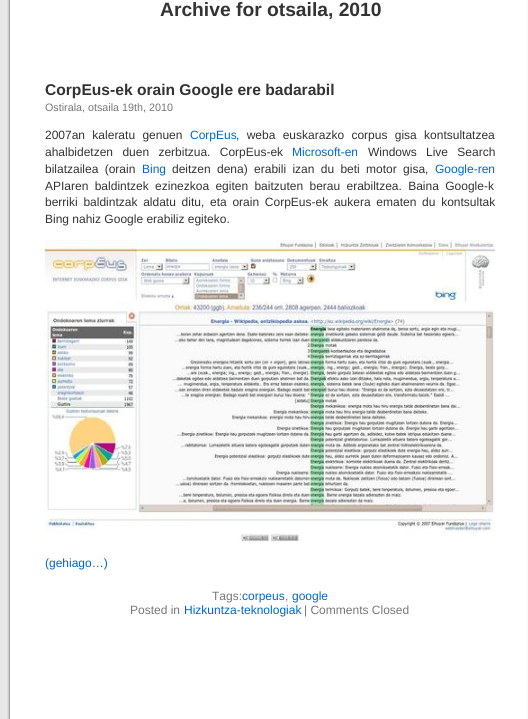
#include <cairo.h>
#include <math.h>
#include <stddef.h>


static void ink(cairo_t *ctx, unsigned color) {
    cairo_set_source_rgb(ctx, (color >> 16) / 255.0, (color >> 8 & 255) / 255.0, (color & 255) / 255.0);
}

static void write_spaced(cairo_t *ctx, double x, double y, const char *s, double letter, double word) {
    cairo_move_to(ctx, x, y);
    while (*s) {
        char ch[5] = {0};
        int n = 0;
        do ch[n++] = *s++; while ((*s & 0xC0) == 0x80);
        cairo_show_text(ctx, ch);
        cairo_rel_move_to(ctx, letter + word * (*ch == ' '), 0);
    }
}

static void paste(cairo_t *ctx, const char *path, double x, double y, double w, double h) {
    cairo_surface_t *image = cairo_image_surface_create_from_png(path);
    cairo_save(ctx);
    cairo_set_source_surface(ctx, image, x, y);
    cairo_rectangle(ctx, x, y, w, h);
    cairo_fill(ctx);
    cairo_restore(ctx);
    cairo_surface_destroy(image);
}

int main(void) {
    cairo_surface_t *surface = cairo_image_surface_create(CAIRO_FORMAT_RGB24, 528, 719);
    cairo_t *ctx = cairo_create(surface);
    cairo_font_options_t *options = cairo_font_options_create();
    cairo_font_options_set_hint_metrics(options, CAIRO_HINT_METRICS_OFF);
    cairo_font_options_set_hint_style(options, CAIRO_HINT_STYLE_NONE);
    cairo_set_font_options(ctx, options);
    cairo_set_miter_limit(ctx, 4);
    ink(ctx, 0xE7E7E7);
    cairo_paint(ctx);
    paste(ctx, "media/1.png", 7, 0, 521, 719);
    cairo_select_font_face(ctx, "Liberation Sans", CAIRO_FONT_SLANT_NORMAL, CAIRO_FONT_WEIGHT_BOLD);
    cairo_set_font_size(ctx, 19.25);
    ink(ctx, 0x333333);
    cairo_move_to(ctx, 160, 16);
    cairo_show_text(ctx, "Archive for otsaila, 2010");
    cairo_set_font_size(ctx, 15.6);
    cairo_move_to(ctx, 45, 95);
    cairo_show_text(ctx, "CorpEus-ek orain Google ere badarabil");
    cairo_select_font_face(ctx, "Liberation Sans", CAIRO_FONT_SLANT_NORMAL, CAIRO_FONT_WEIGHT_NORMAL);
    cairo_set_font_size(ctx, 10.75);
    ink(ctx, 0x777777);
    cairo_move_to(ctx, 45, 111);
    cairo_show_text(ctx, "Ostirala, otsaila 19th, 2010");
    cairo_set_font_size(ctx, 12);
    ink(ctx, 0x333333);
    write_spaced(ctx, 45, 139, "2007an kaleratu genuen", 0, 4);
    ink(ctx, 0x0066CC);
    cairo_move_to(ctx, 190, 139);
    cairo_show_text(ctx, "CorpEus");
    ink(ctx, 0x333333);
    write_spaced(ctx, 236, 139, ", weba euskarazko corpus gisa kontsultatzea", 0, 4);
    write_spaced(ctx, 45, 156, "ahalbidetzen duen zerbitzua. CorpEus-ek", 0, 6);
    ink(ctx, 0x0066CC);
    cairo_move_to(ctx, 292, 156);
    cairo_show_text(ctx, "Microsoft-en");
    ink(ctx, 0x333333);
    write_spaced(ctx, 368, 156, "Windows Live Search", 0, 6);
    write_spaced(ctx, 45, 173, "bilatzailea (orain", 0, 3);
    ink(ctx, 0x0066CC);
    cairo_move_to(ctx, 142, 173);
    cairo_show_text(ctx, "Bing");
    ink(ctx, 0x333333);
    write_spaced(ctx, 172, 173, "deitzen dena) erabili izan du beti motor gisa,", 0, 3);
    ink(ctx, 0x0066CC);
    cairo_move_to(ctx, 435, 173);
    cairo_show_text(ctx, "Google-ren");
    ink(ctx, 0x333333);
    write_spaced(ctx, 45, 190, "APIaren baldintzek ezinezkoa egiten baitzuten berau erabiltzea. Baina Google-k", 0, 3);
    write_spaced(ctx, 45, 206, "berriki baldintzak aldatu ditu, eta orain CorpEus-ek aukera ematen du kontsultak", 0, 2.4);
    cairo_move_to(ctx, 45, 223);
    cairo_show_text(ctx, "Bing nahiz Google erabiliz egiteko.");
    paste(ctx, "media/2.png", 45, 240, 450, 302);
    ink(ctx, 0x0066CC);
    cairo_move_to(ctx, 45, 567);
    cairo_show_text(ctx, "(gehiago…)");
    ink(ctx, 0x777777);
    cairo_move_to(ctx, 212, 600);
    cairo_show_text(ctx, "Tags:");
    ink(ctx, 0x0066CC);
    cairo_move_to(ctx, 242, 600);
    cairo_show_text(ctx, "corpeus");
    ink(ctx, 0x777777);
    cairo_move_to(ctx, 285, 600);
    cairo_show_text(ctx, ",");
    ink(ctx, 0x0066CC);
    cairo_move_to(ctx, 292, 600);
    cairo_show_text(ctx, "google");
    ink(ctx, 0x777777);
    cairo_move_to(ctx, 130, 614);
    cairo_show_text(ctx, "Posted in");
    ink(ctx, 0x0066CC);
    cairo_move_to(ctx, 184, 614);
    cairo_show_text(ctx, "Hizkuntza-teknologiak");
    ink(ctx, 0x777777);
    cairo_move_to(ctx, 304, 614);
    cairo_show_text(ctx, "| Comments Closed");
    cairo_surface_write_to_png(surface, "image.png");
    cairo_font_options_destroy(options);
    cairo_destroy(ctx);
    cairo_surface_destroy(surface);
    return 0;
}
